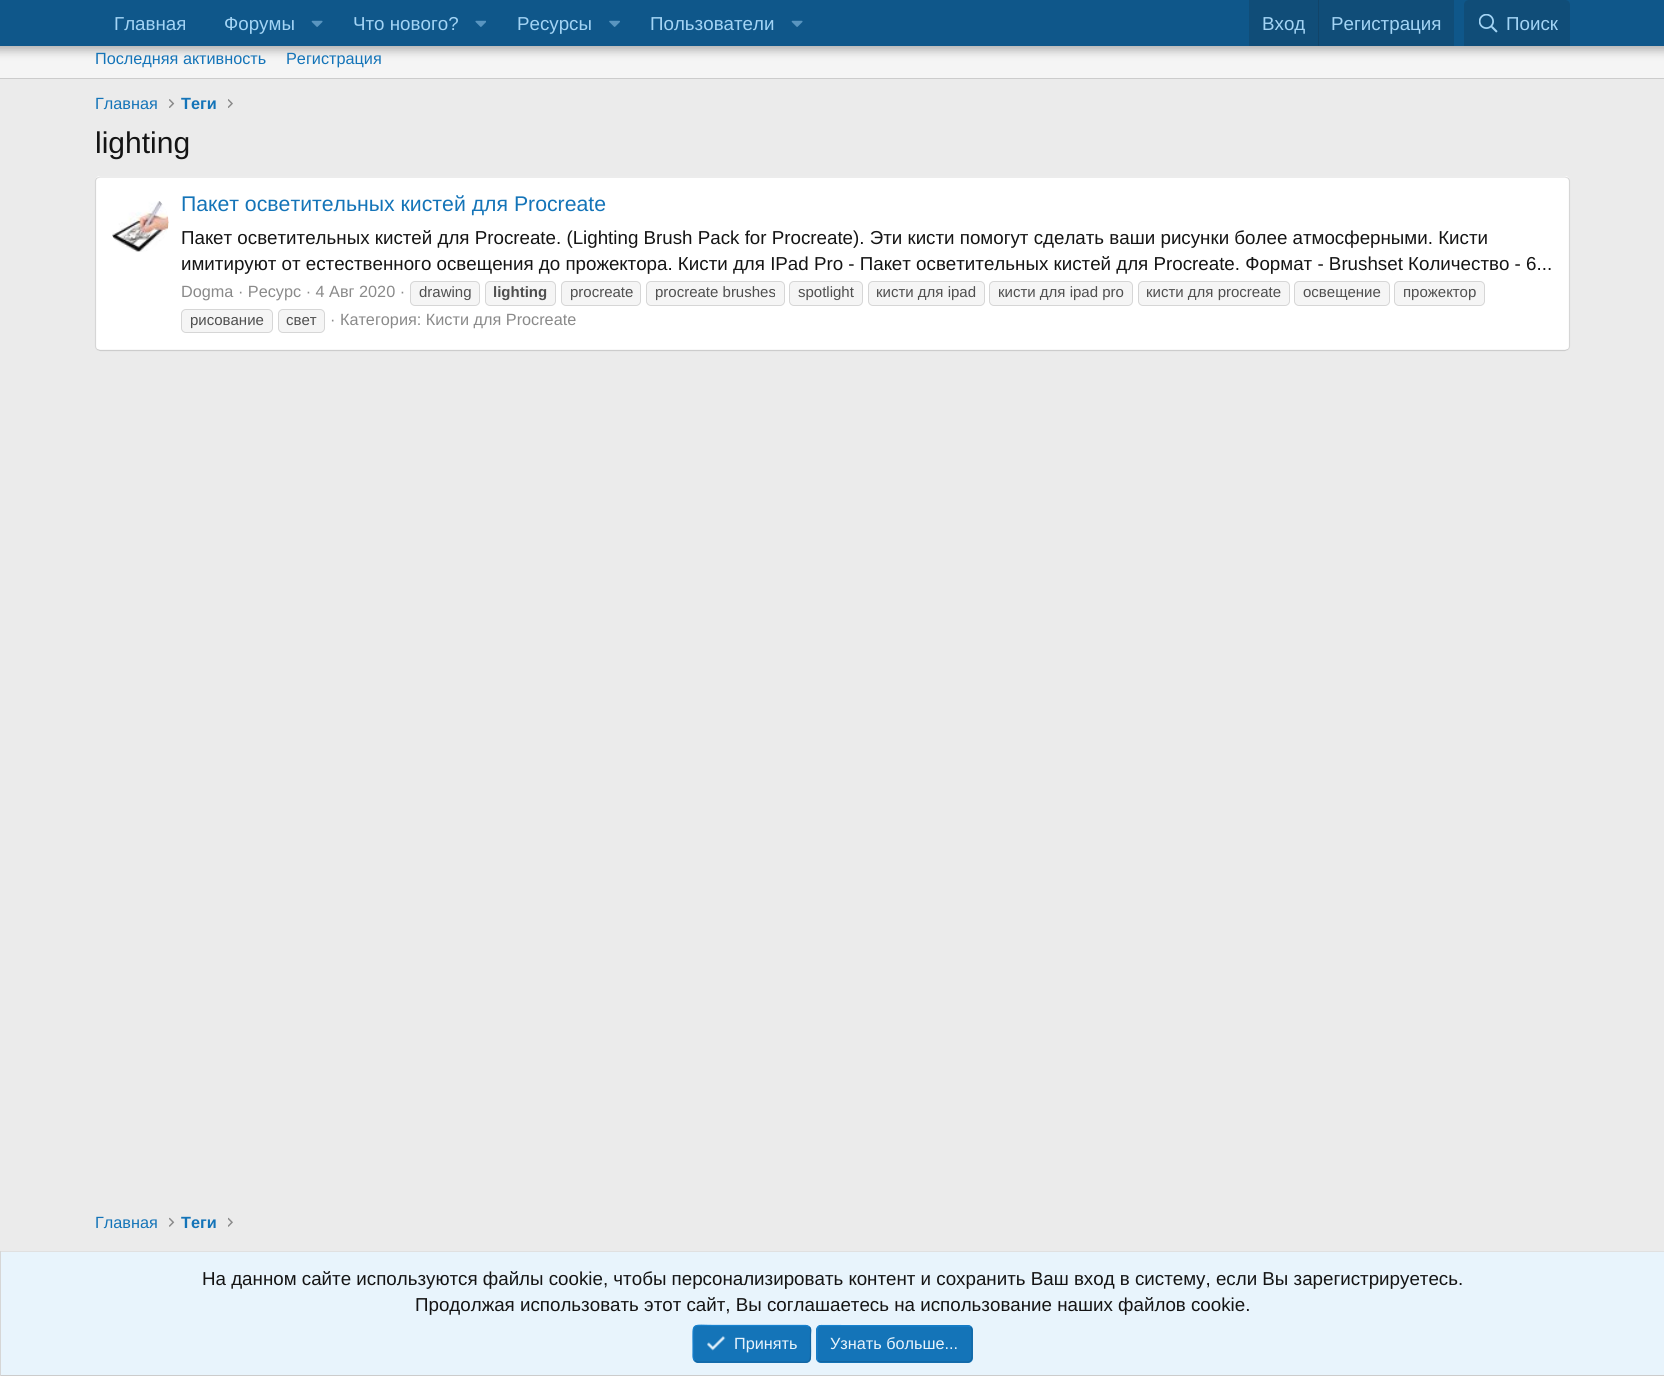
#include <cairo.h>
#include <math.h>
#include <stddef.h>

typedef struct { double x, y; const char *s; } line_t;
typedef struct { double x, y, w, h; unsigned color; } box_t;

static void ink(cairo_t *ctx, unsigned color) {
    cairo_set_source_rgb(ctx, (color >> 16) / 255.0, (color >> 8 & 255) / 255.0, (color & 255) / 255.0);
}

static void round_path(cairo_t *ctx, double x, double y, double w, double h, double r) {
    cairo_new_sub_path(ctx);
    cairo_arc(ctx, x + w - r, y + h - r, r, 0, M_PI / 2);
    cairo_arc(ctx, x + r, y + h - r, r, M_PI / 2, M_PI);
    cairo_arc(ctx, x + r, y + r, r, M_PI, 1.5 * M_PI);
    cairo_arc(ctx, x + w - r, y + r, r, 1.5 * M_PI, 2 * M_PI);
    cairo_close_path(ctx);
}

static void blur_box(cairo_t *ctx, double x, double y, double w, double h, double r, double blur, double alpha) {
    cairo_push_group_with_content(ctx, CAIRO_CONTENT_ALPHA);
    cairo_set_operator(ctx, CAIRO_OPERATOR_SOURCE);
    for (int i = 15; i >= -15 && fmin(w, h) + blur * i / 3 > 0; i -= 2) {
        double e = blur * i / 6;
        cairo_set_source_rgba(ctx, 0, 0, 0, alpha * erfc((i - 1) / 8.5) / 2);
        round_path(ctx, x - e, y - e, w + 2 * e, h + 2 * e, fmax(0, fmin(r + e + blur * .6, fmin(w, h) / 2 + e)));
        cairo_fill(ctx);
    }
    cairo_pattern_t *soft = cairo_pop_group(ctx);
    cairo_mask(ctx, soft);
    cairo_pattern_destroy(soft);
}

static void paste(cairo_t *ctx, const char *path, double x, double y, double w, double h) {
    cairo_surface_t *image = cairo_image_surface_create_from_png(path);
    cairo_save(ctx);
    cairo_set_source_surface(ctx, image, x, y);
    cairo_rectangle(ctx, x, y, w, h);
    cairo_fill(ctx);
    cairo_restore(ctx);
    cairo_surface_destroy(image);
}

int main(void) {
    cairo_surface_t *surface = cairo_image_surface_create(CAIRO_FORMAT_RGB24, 1664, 1376);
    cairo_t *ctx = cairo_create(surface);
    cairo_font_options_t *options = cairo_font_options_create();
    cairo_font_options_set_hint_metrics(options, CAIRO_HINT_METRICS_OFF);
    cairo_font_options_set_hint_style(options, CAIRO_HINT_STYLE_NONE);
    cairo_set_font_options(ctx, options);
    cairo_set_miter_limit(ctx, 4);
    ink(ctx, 0xEBEBEB);
    cairo_paint(ctx);
    ink(ctx, 0xF5F5F5);
    cairo_rectangle(ctx, 0, 46, 1664, 32);
    cairo_fill(ctx);
    ink(ctx, 0x000000);
    blur_box(ctx, -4, -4, 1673, 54, 0, 5, 0.3);
    ink(ctx, 0x0F578A);
    cairo_rectangle(ctx, 0, 0, 1664, 46);
    cairo_fill(ctx);
    cairo_select_font_face(ctx, "Liberation Sans", CAIRO_FONT_SLANT_NORMAL, CAIRO_FONT_WEIGHT_NORMAL);
    cairo_set_font_size(ctx, 18.75);
    ink(ctx, 0xA3D4F5);
    cairo_move_to(ctx, 114, 30);
    cairo_show_text(ctx, "Главная");
    cairo_move_to(ctx, 224, 30);
    cairo_show_text(ctx, "Форумы");
    paste(ctx, "media/1.png", 311, 20, 12, 7);
    cairo_move_to(ctx, 353, 30);
    cairo_show_text(ctx, "Что нового?");
    paste(ctx, "media/2.png", 475, 20, 11, 7);
    cairo_move_to(ctx, 517, 30);
    cairo_show_text(ctx, "Ресурсы");
    paste(ctx, "media/3.png", 609, 20, 11, 7);
    cairo_move_to(ctx, 650, 30);
    cairo_show_text(ctx, "Пользователи");
    paste(ctx, "media/1.png", 791, 20, 12, 7);
    ink(ctx, 0x104D78);
    cairo_rectangle(ctx, 1249, 0, 205, 46);
    cairo_fill(ctx);
    ink(ctx, 0xA3D4F5);
    cairo_move_to(ctx, 1262, 30);
    cairo_show_text(ctx, "Вход");
    ink(ctx, 0x114469);
    cairo_rectangle(ctx, 1318, 0, 1, 46);
    cairo_fill(ctx);
    ink(ctx, 0xA3D4F5);
    cairo_move_to(ctx, 1331, 30);
    cairo_show_text(ctx, "Регистрация");
    ink(ctx, 0x104D78);
    cairo_new_path(ctx);
    cairo_move_to(ctx, 1469, 0);
    cairo_line_to(ctx, 1565, 0);
    cairo_curve_to(ctx, 1568, 0, 1570, 2, 1570, 5);
    cairo_line_to(ctx, 1570, 46);
    cairo_line_to(ctx, 1464, 46);
    cairo_line_to(ctx, 1464, 5);
    cairo_curve_to(ctx, 1464, 2, 1466, 0, 1469, 0);
    cairo_close_path(ctx);
    cairo_fill(ctx);
    paste(ctx, "media/4.png", 1479, 14, 19, 19);
    ink(ctx, 0xA3D4F5);
    cairo_move_to(ctx, 1506, 30);
    cairo_show_text(ctx, "Поиск");
    ink(ctx, 0xCCCCCC);
    cairo_rectangle(ctx, 0, 78, 1664, 1);
    cairo_fill(ctx);
    cairo_set_font_size(ctx, 16.25);
    ink(ctx, 0x1474B8);
    {
        static const line_t items[] = {
            {95, 64, "Последняя активность"},
            {286, 64, "Регистрация"},
            {95, 109, "Главная"},
        };
        for (size_t i = 0; i < sizeof items / sizeof *items; i++) {
            cairo_move_to(ctx, items[i].x, items[i].y);
            cairo_show_text(ctx, items[i].s);
        }
    }
    paste(ctx, "media/5.png", 169, 99, 6, 9);
    cairo_select_font_face(ctx, "Liberation Sans", CAIRO_FONT_SLANT_NORMAL, CAIRO_FONT_WEIGHT_BOLD);
    cairo_move_to(ctx, 181, 109);
    cairo_show_text(ctx, "Теги");
    paste(ctx, "media/6.png", 228, 99, 5, 9);
    cairo_select_font_face(ctx, "Liberation Sans", CAIRO_FONT_SLANT_NORMAL, CAIRO_FONT_WEIGHT_NORMAL);
    cairo_set_font_size(ctx, 30);
    ink(ctx, 0x141414);
    cairo_move_to(ctx, 95, 153);
    cairo_show_text(ctx, "lighting");
    ink(ctx, 0xFFFFFF);
    round_path(ctx, 95, 176, 1475, 175, 5);
    cairo_fill(ctx);
    cairo_new_path(ctx);
    cairo_move_to(ctx, 97, 178);
    cairo_line_to(ctx, 100, 177);
    cairo_line_to(ctx, 1565, 177);
    cairo_line_to(ctx, 1568, 178);
    ink(ctx, 0xE0E0E0);
    cairo_set_line_width(ctx, 1.2);
    cairo_stroke(ctx);
    cairo_new_path(ctx);
    cairo_move_to(ctx, 1568, 178);
    cairo_curve_to(ctx, 1569, 179, 1569.5, 180, 1569.5, 181);
    cairo_line_to(ctx, 1569.5, 346);
    cairo_curve_to(ctx, 1569.5, 347.5, 1569, 348.5, 1568, 349.5);
    ink(ctx, 0xD6D6D6);
    cairo_stroke(ctx);
    cairo_new_path(ctx);
    cairo_move_to(ctx, 1568, 349.5);
    cairo_line_to(ctx, 1565, 350.5);
    cairo_line_to(ctx, 100, 350.5);
    cairo_line_to(ctx, 97, 349.5);
    ink(ctx, 0xCCCCCC);
    cairo_stroke(ctx);
    cairo_new_path(ctx);
    cairo_move_to(ctx, 97, 349.5);
    cairo_curve_to(ctx, 96, 348.5, 95.5, 347.5, 95.5, 346);
    cairo_line_to(ctx, 95.5, 181);
    cairo_curve_to(ctx, 95.5, 180, 96, 179, 97, 178);
    ink(ctx, 0xD6D6D6);
    cairo_stroke(ctx);
    paste(ctx, "media/7.png", 112, 201, 57, 51);
    cairo_set_font_size(ctx, 21.25);
    ink(ctx, 0x1474B8);
    cairo_move_to(ctx, 181, 211);
    cairo_show_text(ctx, "Пакет осветительных кистей для Procreate");
    cairo_set_font_size(ctx, 18.75);
    ink(ctx, 0x141414);
    cairo_move_to(ctx, 181, 244);
    cairo_show_text(ctx, "Пакет осветительных кистей для Procreate. (Lighting Brush Pack for Procreate). Эти кисти помогут сделать ваши рисунки более атмосферными. Кисти");
    cairo_move_to(ctx, 181, 270);
    cairo_show_text(ctx, "имитируют от естественного освещения до прожектора. Кисти для IPad Pro - Пакет осветительных кистей для Procreate. Формат - Brushset Количество - 6...");
    cairo_set_font_size(ctx, 16.25);
    ink(ctx, 0x8A8A8A);
    cairo_move_to(ctx, 181, 297);
    cairo_show_text(ctx, "Dogma · Ресурс · 4 Авг 2020 ·");
    ink(ctx, 0xF5F5F5);
    round_path(ctx, 410.5, 281.5, 69, 24, 4.5);
    cairo_fill_preserve(ctx);
    ink(ctx, 0xD6D6D6);
    cairo_set_line_width(ctx, 1);
    cairo_stroke(ctx);
    cairo_set_font_size(ctx, 15);
    ink(ctx, 0x4F4F4F);
    cairo_move_to(ctx, 419, 297);
    cairo_show_text(ctx, "drawing");
    ink(ctx, 0xF5F5F5);
    round_path(ctx, 485.5, 281.5, 70, 24, 4.5);
    cairo_fill_preserve(ctx);
    ink(ctx, 0xD6D6D6);
    cairo_stroke(ctx);
    cairo_select_font_face(ctx, "Liberation Sans", CAIRO_FONT_SLANT_NORMAL, CAIRO_FONT_WEIGHT_BOLD);
    ink(ctx, 0x4F4F4F);
    cairo_move_to(ctx, 493, 297);
    cairo_show_text(ctx, "lighting");
    ink(ctx, 0xF5F5F5);
    round_path(ctx, 561.5, 281.5, 79, 24, 4.5);
    cairo_fill_preserve(ctx);
    ink(ctx, 0xD6D6D6);
    cairo_stroke(ctx);
    cairo_select_font_face(ctx, "Liberation Sans", CAIRO_FONT_SLANT_NORMAL, CAIRO_FONT_WEIGHT_NORMAL);
    ink(ctx, 0x4F4F4F);
    cairo_move_to(ctx, 570, 297);
    cairo_show_text(ctx, "procreate");
    ink(ctx, 0xF5F5F5);
    round_path(ctx, 646.5, 281.5, 138, 24, 4.5);
    cairo_fill_preserve(ctx);
    ink(ctx, 0xD6D6D6);
    cairo_stroke(ctx);
    ink(ctx, 0x4F4F4F);
    cairo_move_to(ctx, 655, 297);
    cairo_show_text(ctx, "procreate brushes");
    ink(ctx, 0xF5F5F5);
    round_path(ctx, 789.5, 281.5, 73, 24, 4.5);
    cairo_fill_preserve(ctx);
    ink(ctx, 0xD6D6D6);
    cairo_stroke(ctx);
    ink(ctx, 0x4F4F4F);
    cairo_move_to(ctx, 798, 297);
    cairo_show_text(ctx, "spotlight");
    ink(ctx, 0xF5F5F5);
    round_path(ctx, 868.5, 281.5, 116, 24, 4.5);
    cairo_fill_preserve(ctx);
    ink(ctx, 0xD6D6D6);
    cairo_stroke(ctx);
    ink(ctx, 0x4F4F4F);
    cairo_move_to(ctx, 876, 297);
    cairo_show_text(ctx, "кисти для ipad");
    ink(ctx, 0xF5F5F5);
    round_path(ctx, 989.5, 281.5, 143, 24, 4.5);
    cairo_fill_preserve(ctx);
    ink(ctx, 0xD6D6D6);
    cairo_stroke(ctx);
    ink(ctx, 0x4F4F4F);
    cairo_move_to(ctx, 998, 297);
    cairo_show_text(ctx, "кисти для ipad pro");
    ink(ctx, 0xF5F5F5);
    round_path(ctx, 1138.5, 281.5, 151, 24, 4.5);
    cairo_fill_preserve(ctx);
    ink(ctx, 0xD6D6D6);
    cairo_stroke(ctx);
    ink(ctx, 0x4F4F4F);
    cairo_move_to(ctx, 1146, 297);
    cairo_show_text(ctx, "кисти для procreate");
    ink(ctx, 0xF5F5F5);
    round_path(ctx, 1294.5, 281.5, 95, 24, 4.5);
    cairo_fill_preserve(ctx);
    ink(ctx, 0xD6D6D6);
    cairo_stroke(ctx);
    ink(ctx, 0x4F4F4F);
    cairo_move_to(ctx, 1303, 297);
    cairo_show_text(ctx, "освещение");
    ink(ctx, 0xF5F5F5);
    round_path(ctx, 1394.5, 281.5, 90, 24, 4.5);
    cairo_fill_preserve(ctx);
    ink(ctx, 0xD6D6D6);
    cairo_stroke(ctx);
    ink(ctx, 0x4F4F4F);
    cairo_move_to(ctx, 1403, 297);
    cairo_show_text(ctx, "прожектор");
    ink(ctx, 0xF5F5F5);
    round_path(ctx, 181.5, 309.5, 91, 23, 4.5);
    cairo_fill_preserve(ctx);
    ink(ctx, 0xD6D6D6);
    cairo_stroke(ctx);
    ink(ctx, 0x4F4F4F);
    cairo_move_to(ctx, 190, 325);
    cairo_show_text(ctx, "рисование");
    ink(ctx, 0xF5F5F5);
    round_path(ctx, 278.5, 309.5, 46, 23, 4.5);
    cairo_fill_preserve(ctx);
    ink(ctx, 0xD6D6D6);
    cairo_stroke(ctx);
    ink(ctx, 0x4F4F4F);
    cairo_move_to(ctx, 286, 325);
    cairo_show_text(ctx, "свет");
    cairo_set_font_size(ctx, 16.25);
    ink(ctx, 0x8A8A8A);
    cairo_move_to(ctx, 330, 325);
    cairo_show_text(ctx, "· Категория: Кисти для Procreate");
    ink(ctx, 0x1474B8);
    cairo_move_to(ctx, 95, 1228);
    cairo_show_text(ctx, "Главная");
    paste(ctx, "media/8.png", 169, 1217, 6, 10);
    cairo_select_font_face(ctx, "Liberation Sans", CAIRO_FONT_SLANT_NORMAL, CAIRO_FONT_WEIGHT_BOLD);
    cairo_move_to(ctx, 181, 1228);
    cairo_show_text(ctx, "Теги");
    paste(ctx, "media/9.png", 228, 1217, 5, 10);
    {
        static const box_t items[] = {
            {1, 1252, 1663, 123, 0xE8F4FC},
            {0, 1251, 1664, 1, 0xE0E0E0},
            {0, 1375, 1664, 1, 0xCCCCCC},
            {0, 1251, 1, 125, 0xD6D6D6},
        };
        for (size_t i = 0; i < sizeof items / sizeof *items; i++) {
            ink(ctx, items[i].color);
            cairo_rectangle(ctx, items[i].x, items[i].y, items[i].w, items[i].h);
            cairo_fill(ctx);
        }
    }
    cairo_select_font_face(ctx, "Liberation Sans", CAIRO_FONT_SLANT_NORMAL, CAIRO_FONT_WEIGHT_NORMAL);
    cairo_set_font_size(ctx, 18.75);
    ink(ctx, 0x141414);
    cairo_move_to(ctx, 202, 1285);
    cairo_show_text(ctx, "На данном сайте используются файлы cookie, чтобы персонализировать контент и сохранить Ваш вход в систему, если Вы зарегистрируетесь.");
    cairo_move_to(ctx, 415, 1311);
    cairo_show_text(ctx, "Продолжая использовать этот сайт, Вы соглашаетесь на использование наших файлов cookie.");
    ink(ctx, 0x1474B8);
    round_path(ctx, 693, 1325, 118, 38, 5);
    cairo_fill(ctx);
    cairo_new_path(ctx);
    cairo_move_to(ctx, 809.5, 1327);
    cairo_curve_to(ctx, 811.5, 1329, 810.5, 1332, 810.5, 1334.5);
    cairo_line_to(ctx, 810.5, 1344);
    cairo_curve_to(ctx, 810.5, 1366, 813, 1362, 788, 1362);
    cairo_line_to(ctx, 697.5, 1362);
    cairo_line_to(ctx, 694.5, 1360.5);
    ink(ctx, 0x1265A1);
    cairo_set_line_width(ctx, 1.2);
    cairo_stroke(ctx);
    cairo_new_path(ctx);
    cairo_move_to(ctx, 694.5, 1360.5);
    cairo_curve_to(ctx, 692.5, 1358.5, 693, 1355.5, 693, 1353);
    cairo_line_to(ctx, 693, 1344);
    cairo_curve_to(ctx, 693, 1321.5, 690.5, 1325.5, 715.5, 1325.5);
    cairo_line_to(ctx, 806, 1325.5);
    cairo_line_to(ctx, 809.5, 1327);
    ink(ctx, 0x1782CF);
    cairo_stroke(ctx);
    paste(ctx, "media/10.png", 707, 1336, 19, 15);
    cairo_set_font_size(ctx, 16.25);
    ink(ctx, 0xE8F4FC);
    cairo_move_to(ctx, 734, 1349);
    cairo_show_text(ctx, "Принять");
    ink(ctx, 0x1474B8);
    round_path(ctx, 816, 1325, 157, 38, 5);
    cairo_fill(ctx);
    cairo_new_path(ctx);
    cairo_move_to(ctx, 970.5, 1327);
    cairo_curve_to(ctx, 972.5, 1329, 972, 1332, 972, 1334.5);
    cairo_line_to(ctx, 972, 1353);
    cairo_curve_to(ctx, 972, 1356.5, 972.5, 1362, 967.5, 1362);
    cairo_line_to(ctx, 820, 1361.5);
    cairo_line_to(ctx, 818, 1360.5);
    ink(ctx, 0x1265A1);
    cairo_stroke(ctx);
    cairo_new_path(ctx);
    cairo_move_to(ctx, 818, 1360.5);
    cairo_curve_to(ctx, 816, 1358.5, 817, 1355.5, 817, 1353);
    cairo_line_to(ctx, 817, 1334.5);
    cairo_curve_to(ctx, 817, 1331, 816.5, 1325.5, 821, 1325.5);
    cairo_line_to(ctx, 969, 1326);
    cairo_line_to(ctx, 970.5, 1327);
    ink(ctx, 0x1782CF);
    cairo_stroke(ctx);
    ink(ctx, 0xE8F4FC);
    cairo_move_to(ctx, 830, 1349);
    cairo_show_text(ctx, "Узнать больше...");
    cairo_surface_write_to_png(surface, "image.png");
    cairo_font_options_destroy(options);
    cairo_destroy(ctx);
    cairo_surface_destroy(surface);
    return 0;
}
